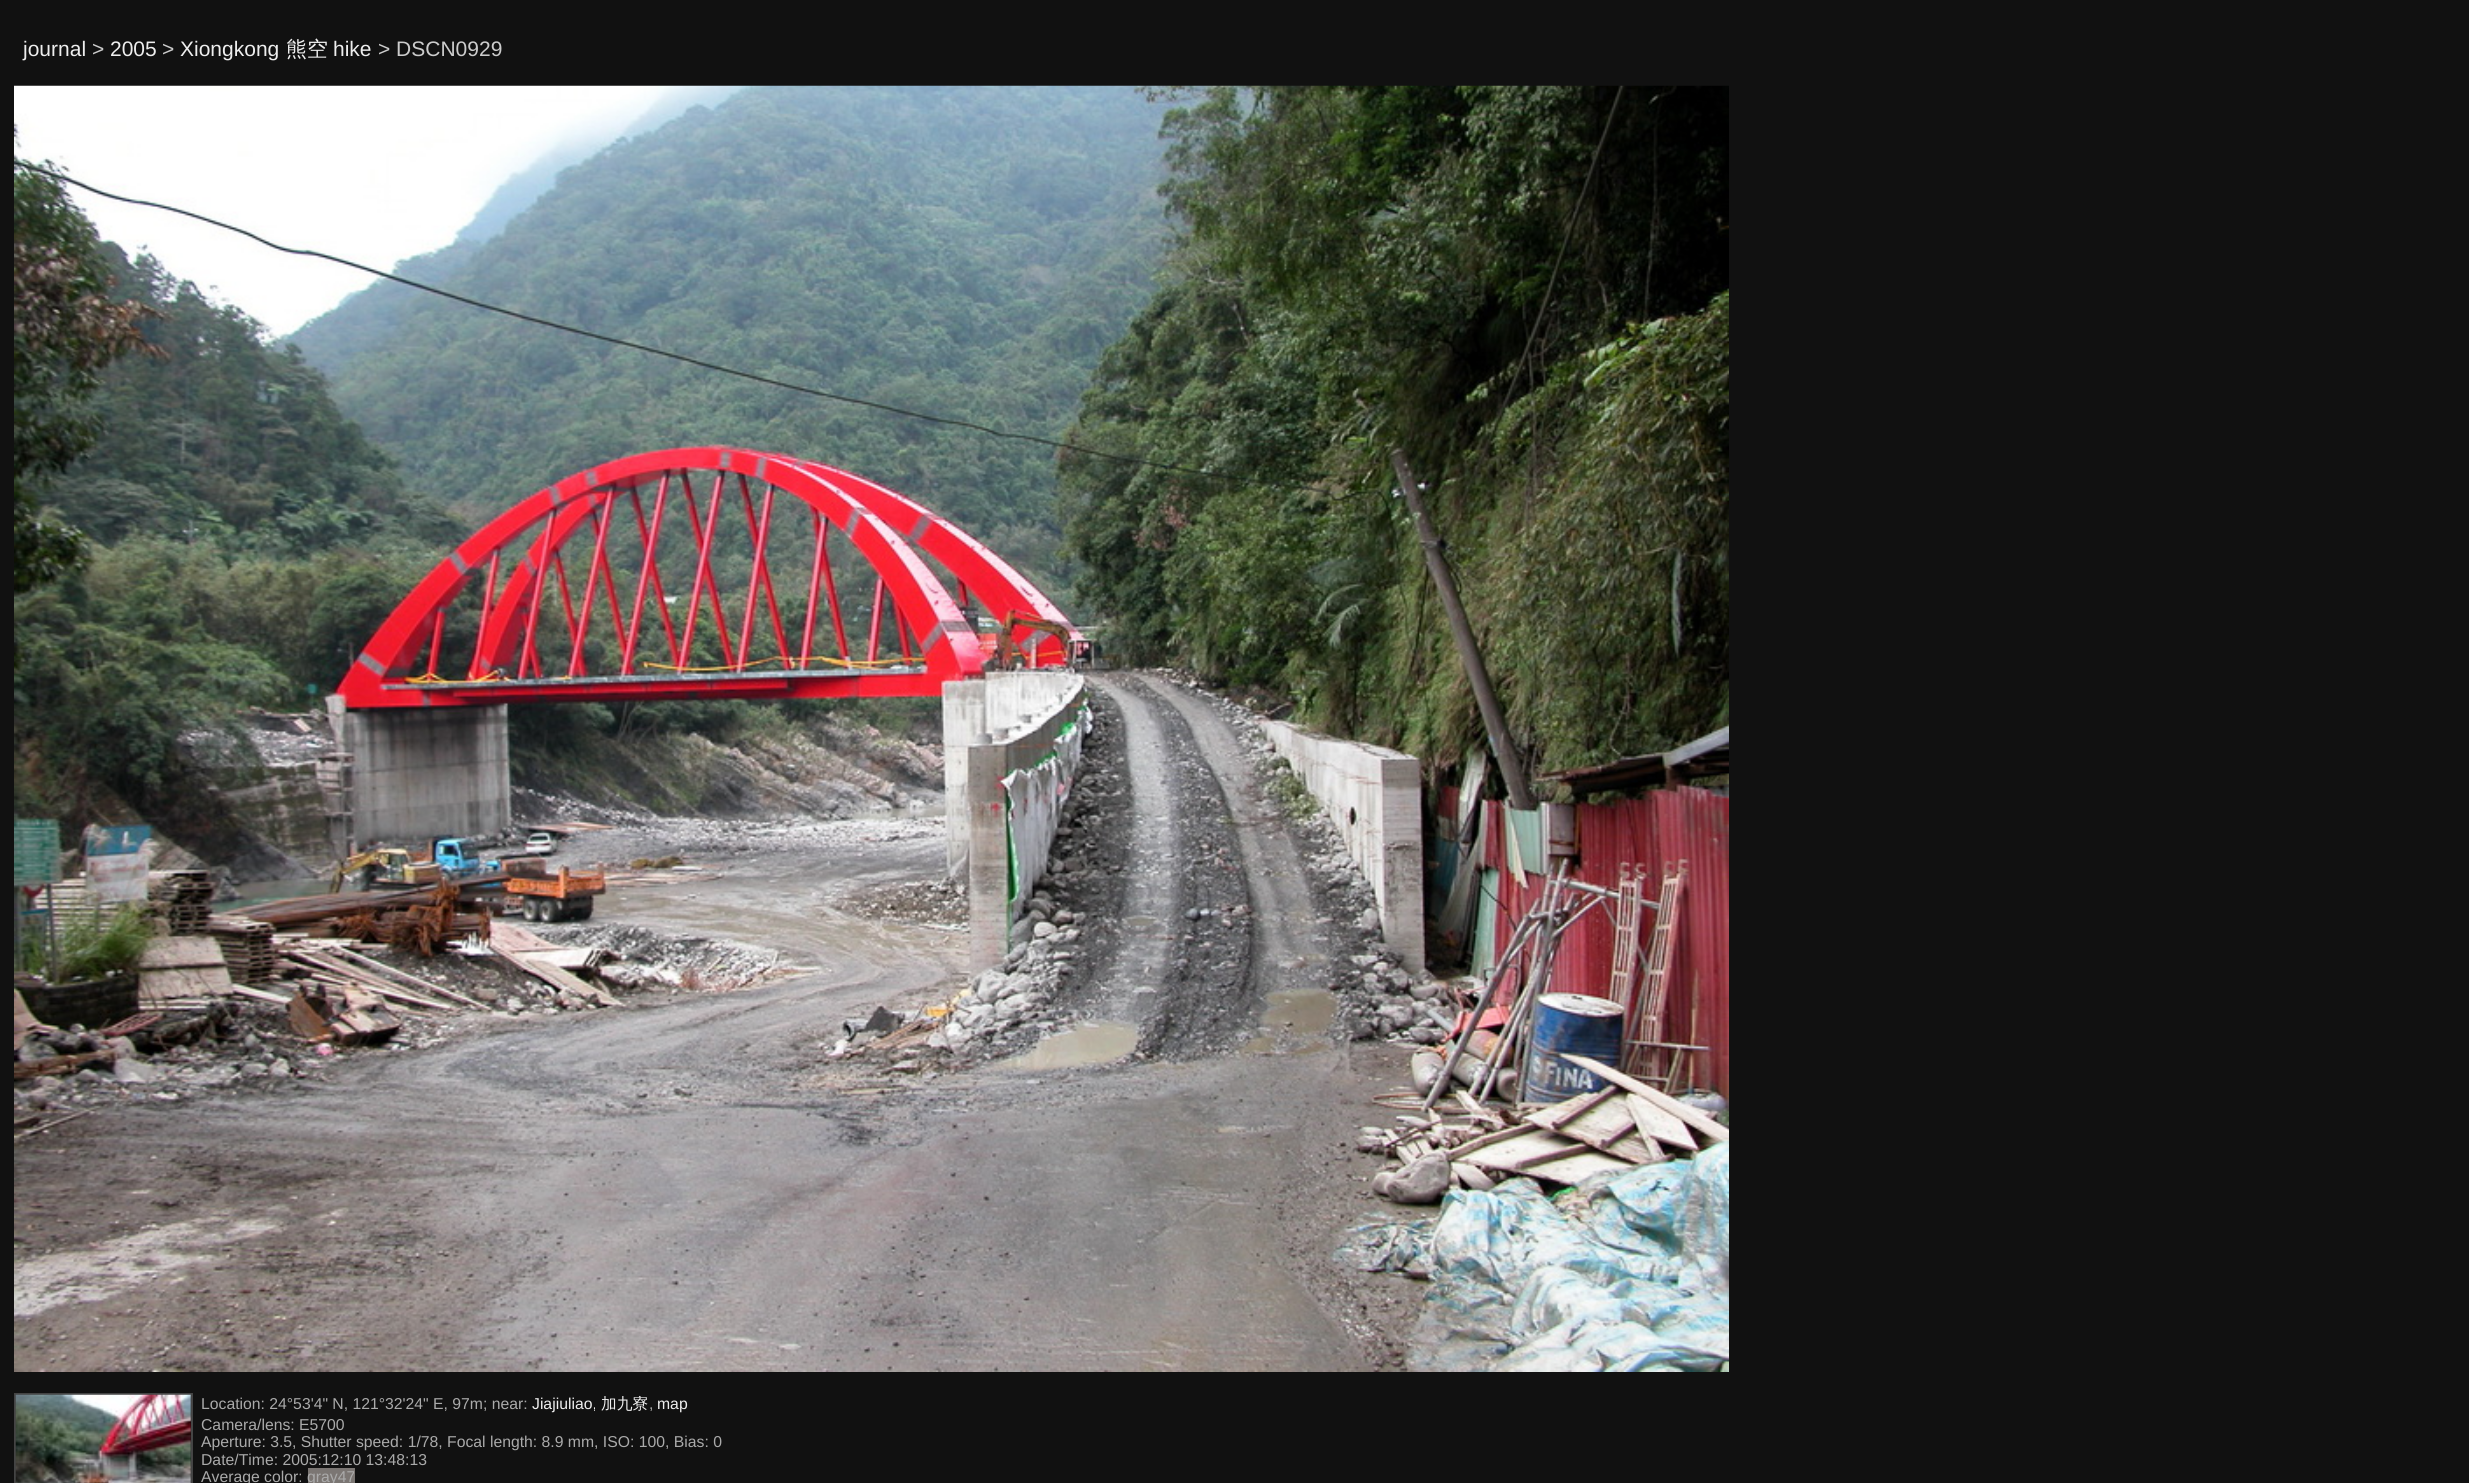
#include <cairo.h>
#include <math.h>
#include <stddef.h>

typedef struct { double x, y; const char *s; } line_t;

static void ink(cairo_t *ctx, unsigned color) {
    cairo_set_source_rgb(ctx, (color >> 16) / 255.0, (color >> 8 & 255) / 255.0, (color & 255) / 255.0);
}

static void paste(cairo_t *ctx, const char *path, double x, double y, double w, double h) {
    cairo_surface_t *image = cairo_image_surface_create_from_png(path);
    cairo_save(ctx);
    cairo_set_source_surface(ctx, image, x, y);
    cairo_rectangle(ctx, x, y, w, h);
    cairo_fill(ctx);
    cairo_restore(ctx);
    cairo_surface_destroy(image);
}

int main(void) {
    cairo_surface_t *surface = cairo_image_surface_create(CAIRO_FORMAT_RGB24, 2469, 1483);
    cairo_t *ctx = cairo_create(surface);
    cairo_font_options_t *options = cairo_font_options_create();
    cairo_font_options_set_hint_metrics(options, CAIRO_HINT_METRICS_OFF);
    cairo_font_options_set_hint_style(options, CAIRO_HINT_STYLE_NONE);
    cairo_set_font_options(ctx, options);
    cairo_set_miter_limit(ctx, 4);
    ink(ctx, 0x111111);
    cairo_paint(ctx);
    cairo_select_font_face(ctx, "Liberation Sans", CAIRO_FONT_SLANT_NORMAL, CAIRO_FONT_WEIGHT_NORMAL);
    cairo_set_font_size(ctx, 21);
    ink(ctx, 0xEEEEEE);
    cairo_move_to(ctx, 23, 56);
    cairo_show_text(ctx, "journal");
    ink(ctx, 0xCCCCCC);
    cairo_move_to(ctx, 92, 56);
    cairo_show_text(ctx, ">");
    ink(ctx, 0xEEEEEE);
    cairo_move_to(ctx, 110, 56);
    cairo_show_text(ctx, "2005");
    ink(ctx, 0xCCCCCC);
    cairo_move_to(ctx, 162, 56);
    cairo_show_text(ctx, ">");
    ink(ctx, 0xEEEEEE);
    cairo_move_to(ctx, 180, 56);
    cairo_show_text(ctx, "Xiongkong");
    cairo_select_font_face(ctx, "WenQuanYi Zen Hei Medium", CAIRO_FONT_SLANT_NORMAL, CAIRO_FONT_WEIGHT_NORMAL);
    cairo_move_to(ctx, 286, 56);
    cairo_show_text(ctx, "熊空");
    cairo_select_font_face(ctx, "Liberation Sans", CAIRO_FONT_SLANT_NORMAL, CAIRO_FONT_WEIGHT_NORMAL);
    cairo_move_to(ctx, 333, 56);
    cairo_show_text(ctx, "hike");
    ink(ctx, 0xCCCCCC);
    cairo_move_to(ctx, 378, 56);
    cairo_show_text(ctx, "> DSCN0929");
    paste(ctx, "media/1.png", 14, 85, 1715, 1287);
    cairo_rectangle(ctx, 15, 1394, 177, 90);
    ink(ctx, 0x444444);
    cairo_stroke(ctx);
    paste(ctx, "media/2.png", 15, 1394, 176, 89);
    cairo_set_font_size(ctx, 15.75);
    ink(ctx, 0xAAAAAA);
    cairo_move_to(ctx, 201, 1409);
    cairo_show_text(ctx, "Location: 24°53'4\" N, 121°32'24\" E, 97m; near:");
    ink(ctx, 0xEEEEEE);
    cairo_move_to(ctx, 532, 1409);
    cairo_show_text(ctx, "Jiajiuliao,");
    cairo_select_font_face(ctx, "WenQuanYi Zen Hei Medium", CAIRO_FONT_SLANT_NORMAL, CAIRO_FONT_WEIGHT_NORMAL);
    cairo_move_to(ctx, 601, 1409);
    cairo_show_text(ctx, "加九寮");
    cairo_select_font_face(ctx, "Liberation Sans", CAIRO_FONT_SLANT_NORMAL, CAIRO_FONT_WEIGHT_NORMAL);
    ink(ctx, 0xAAAAAA);
    cairo_move_to(ctx, 649, 1409);
    cairo_show_text(ctx, ",");
    ink(ctx, 0xEEEEEE);
    cairo_move_to(ctx, 657, 1409);
    cairo_show_text(ctx, "map");
    ink(ctx, 0xAAAAAA);
    {
        static const line_t items[] = {
            {201, 1430, "Camera/lens: E5700"},
            {201, 1447, "Aperture: 3.5, Shutter speed: 1/78, Focal length: 8.9 mm, ISO: 100, Bias: 0"},
            {201, 1465, "Date/Time: 2005:12:10 13:48:13"},
            {201, 1482, "Average color:"},
        };
        for (size_t i = 0; i < sizeof items / sizeof *items; i++) {
            cairo_move_to(ctx, items[i].x, items[i].y);
            cairo_show_text(ctx, items[i].s);
        }
    }
    ink(ctx, 0x7B7673);
    cairo_rectangle(ctx, 308, 1468, 47, 15);
    cairo_fill(ctx);
    ink(ctx, 0xAAAAAA);
    cairo_move_to(ctx, 307, 1482);
    cairo_show_text(ctx, "gray47");
    cairo_surface_write_to_png(surface, "image.png");
    cairo_font_options_destroy(options);
    cairo_destroy(ctx);
    cairo_surface_destroy(surface);
    return 0;
}
